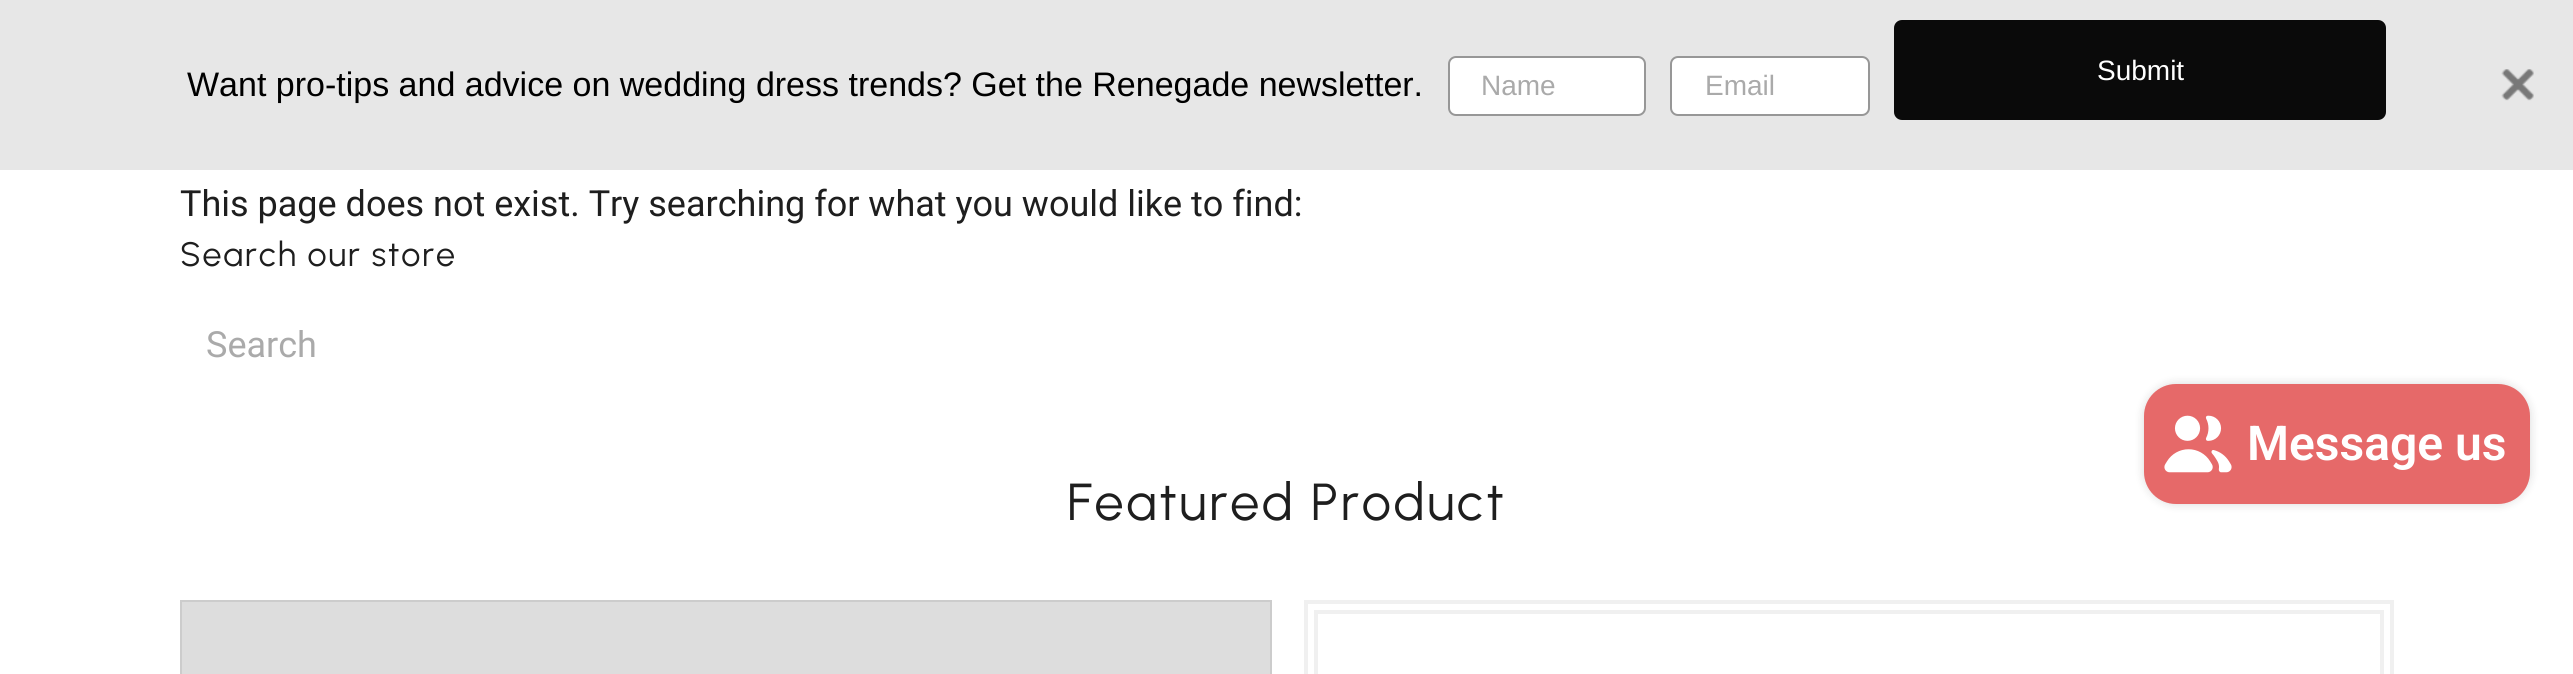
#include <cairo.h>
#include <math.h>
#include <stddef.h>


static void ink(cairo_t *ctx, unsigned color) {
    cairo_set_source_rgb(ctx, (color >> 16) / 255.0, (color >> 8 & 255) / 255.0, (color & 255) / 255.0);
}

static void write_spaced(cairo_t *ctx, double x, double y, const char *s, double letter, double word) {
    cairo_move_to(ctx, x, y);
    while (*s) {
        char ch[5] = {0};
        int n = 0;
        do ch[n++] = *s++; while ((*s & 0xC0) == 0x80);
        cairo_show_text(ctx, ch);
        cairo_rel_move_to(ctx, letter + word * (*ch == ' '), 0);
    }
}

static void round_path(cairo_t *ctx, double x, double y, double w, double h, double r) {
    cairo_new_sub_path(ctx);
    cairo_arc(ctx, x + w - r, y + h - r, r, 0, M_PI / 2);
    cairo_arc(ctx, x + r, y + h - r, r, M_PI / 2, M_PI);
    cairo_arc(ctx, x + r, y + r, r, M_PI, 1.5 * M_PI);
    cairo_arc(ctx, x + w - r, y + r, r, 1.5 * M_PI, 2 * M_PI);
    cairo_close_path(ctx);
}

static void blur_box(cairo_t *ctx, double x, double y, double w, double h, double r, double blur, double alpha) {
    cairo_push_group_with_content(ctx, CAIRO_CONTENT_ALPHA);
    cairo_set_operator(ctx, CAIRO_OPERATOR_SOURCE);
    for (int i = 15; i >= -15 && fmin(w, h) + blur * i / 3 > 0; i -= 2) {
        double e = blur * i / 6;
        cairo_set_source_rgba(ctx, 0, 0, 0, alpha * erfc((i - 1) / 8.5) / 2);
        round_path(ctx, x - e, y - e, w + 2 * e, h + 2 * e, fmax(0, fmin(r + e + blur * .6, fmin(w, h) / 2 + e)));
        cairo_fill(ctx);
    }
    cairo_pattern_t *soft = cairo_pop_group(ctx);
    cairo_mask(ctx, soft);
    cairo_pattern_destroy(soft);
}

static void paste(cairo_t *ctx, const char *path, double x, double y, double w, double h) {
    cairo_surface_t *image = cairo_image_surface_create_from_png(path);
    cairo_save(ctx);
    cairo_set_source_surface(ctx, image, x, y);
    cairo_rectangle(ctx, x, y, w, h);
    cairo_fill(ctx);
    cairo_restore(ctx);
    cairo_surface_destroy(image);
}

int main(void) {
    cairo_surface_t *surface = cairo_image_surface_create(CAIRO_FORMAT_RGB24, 2573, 674);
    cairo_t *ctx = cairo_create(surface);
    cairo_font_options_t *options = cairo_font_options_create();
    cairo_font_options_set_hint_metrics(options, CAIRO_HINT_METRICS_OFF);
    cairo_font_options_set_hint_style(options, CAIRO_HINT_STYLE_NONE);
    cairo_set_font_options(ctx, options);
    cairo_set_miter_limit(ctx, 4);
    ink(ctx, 0xFFFFFF);
    cairo_paint(ctx);
    ink(ctx, 0xE7E7E7);
    cairo_rectangle(ctx, 0, 0, 2573, 170);
    cairo_fill(ctx);
    cairo_select_font_face(ctx, "Liberation Sans", CAIRO_FONT_SLANT_NORMAL, CAIRO_FONT_WEIGHT_NORMAL);
    cairo_set_font_size(ctx, 34);
    ink(ctx, 0x000000);
    cairo_move_to(ctx, 187, 96);
    cairo_show_text(ctx, "Want pro-tips and advice on wedding dress trends? Get the Renegade newsletter.");
    ink(ctx, 0x0A0A0A);
    round_path(ctx, 1894, 20, 492, 100, 8);
    cairo_fill(ctx);
    cairo_set_font_size(ctx, 28);
    ink(ctx, 0xFFFFFF);
    cairo_move_to(ctx, 2097, 80);
    cairo_show_text(ctx, "Submit");
    round_path(ctx, 1449, 57, 196, 58, 7);
    cairo_fill_preserve(ctx);
    ink(ctx, 0x979797);
    cairo_stroke(ctx);
    ink(ctx, 0xAAAAAA);
    cairo_move_to(ctx, 1481, 95);
    cairo_show_text(ctx, "Name");
    ink(ctx, 0xFFFFFF);
    round_path(ctx, 1671, 57, 198, 58, 7);
    cairo_fill_preserve(ctx);
    ink(ctx, 0x979797);
    cairo_stroke(ctx);
    ink(ctx, 0xAAAAAA);
    cairo_move_to(ctx, 1705, 95);
    cairo_show_text(ctx, "Email");
    paste(ctx, "media/1.png", 2501, 69, 33, 32);
    cairo_select_font_face(ctx, "Roboto", CAIRO_FONT_SLANT_NORMAL, CAIRO_FONT_WEIGHT_NORMAL);
    cairo_set_font_size(ctx, 36);
    ink(ctx, 0x1E1E1E);
    cairo_move_to(ctx, 180, 216);
    cairo_show_text(ctx, "This page does not exist. Try searching for what you would like to find:");
    cairo_select_font_face(ctx, "Urbanist", CAIRO_FONT_SLANT_NORMAL, CAIRO_FONT_WEIGHT_NORMAL);
    cairo_set_font_size(ctx, 34);
    write_spaced(ctx, 180, 266, "Search our store", 1.75, 0);
    cairo_select_font_face(ctx, "Roboto", CAIRO_FONT_SLANT_NORMAL, CAIRO_FONT_WEIGHT_NORMAL);
    cairo_set_font_size(ctx, 36);
    ink(ctx, 0xAAAAAA);
    cairo_move_to(ctx, 206, 357);
    cairo_show_text(ctx, "Search");
    cairo_select_font_face(ctx, "Urbanist", CAIRO_FONT_SLANT_NORMAL, CAIRO_FONT_WEIGHT_NORMAL);
    cairo_set_font_size(ctx, 52);
    ink(ctx, 0x1E1E1E);
    write_spaced(ctx, 1067, 520, "Featured Product", 2.6, 0);
    ink(ctx, 0xDDDDDD);
    cairo_rectangle(ctx, 181, 601, 1090, 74);
    cairo_fill_preserve(ctx);
    ink(ctx, 0xCCCCCC);
    cairo_stroke(ctx);
    cairo_rectangle(ctx, 1306, 602, 1086, 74);
    ink(ctx, 0xF0F0F0);
    cairo_set_line_width(ctx, 4);
    cairo_stroke(ctx);
    cairo_rectangle(ctx, 1316, 612, 1066, 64);
    cairo_stroke(ctx);
    ink(ctx, 0x000000);
    blur_box(ctx, 2144, 384, 386, 120, 32, 5, 0.15);
    ink(ctx, 0xE66969);
    round_path(ctx, 2144, 384, 386, 120, 32);
    cairo_fill(ctx);
    paste(ctx, "media/2.png", 2164, 415, 68, 58);
    cairo_select_font_face(ctx, "Roboto SemiBold", CAIRO_FONT_SLANT_NORMAL, CAIRO_FONT_WEIGHT_NORMAL);
    cairo_set_font_size(ctx, 48);
    ink(ctx, 0xFFFFFF);
    cairo_move_to(ctx, 2247, 460);
    cairo_show_text(ctx, "Message us");
    cairo_surface_write_to_png(surface, "image.png");
    cairo_font_options_destroy(options);
    cairo_destroy(ctx);
    cairo_surface_destroy(surface);
    return 0;
}
